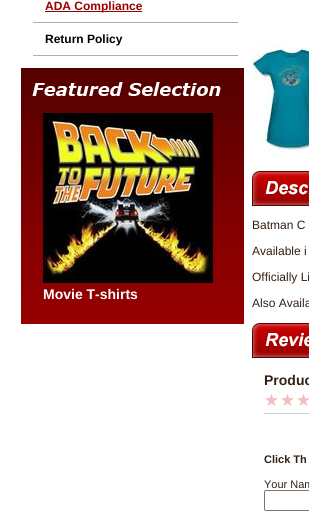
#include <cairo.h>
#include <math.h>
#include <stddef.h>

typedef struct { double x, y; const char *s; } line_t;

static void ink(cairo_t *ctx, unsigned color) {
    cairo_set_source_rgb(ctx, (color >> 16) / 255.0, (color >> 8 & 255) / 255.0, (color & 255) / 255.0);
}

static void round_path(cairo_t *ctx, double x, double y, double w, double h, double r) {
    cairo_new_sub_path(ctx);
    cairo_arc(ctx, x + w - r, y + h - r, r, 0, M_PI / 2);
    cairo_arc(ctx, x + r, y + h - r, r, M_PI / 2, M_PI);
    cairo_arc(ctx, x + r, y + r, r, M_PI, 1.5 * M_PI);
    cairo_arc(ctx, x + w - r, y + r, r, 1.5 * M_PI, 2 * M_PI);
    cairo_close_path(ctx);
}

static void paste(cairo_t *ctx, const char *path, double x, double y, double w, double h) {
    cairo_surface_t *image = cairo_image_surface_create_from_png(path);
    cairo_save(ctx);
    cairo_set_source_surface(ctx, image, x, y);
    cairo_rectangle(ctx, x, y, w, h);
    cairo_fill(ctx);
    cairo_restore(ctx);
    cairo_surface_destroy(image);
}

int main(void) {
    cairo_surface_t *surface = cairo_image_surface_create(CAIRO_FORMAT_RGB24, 309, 520);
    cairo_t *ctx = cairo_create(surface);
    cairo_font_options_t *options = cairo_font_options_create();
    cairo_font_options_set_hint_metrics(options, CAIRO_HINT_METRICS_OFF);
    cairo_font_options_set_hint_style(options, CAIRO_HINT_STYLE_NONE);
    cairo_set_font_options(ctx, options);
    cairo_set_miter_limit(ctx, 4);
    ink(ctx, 0xFFFFFF);
    cairo_paint(ctx);
    ink(ctx, 0xADADAD);
    cairo_rectangle(ctx, 33, 22, 205, 1);
    cairo_fill(ctx);
    ink(ctx, 0x990000);
    cairo_rectangle(ctx, 45, 11, 97, 1);
    cairo_fill(ctx);
    cairo_select_font_face(ctx, "Liberation Sans", CAIRO_FONT_SLANT_NORMAL, CAIRO_FONT_WEIGHT_BOLD);
    cairo_set_font_size(ctx, 12);
    cairo_move_to(ctx, 45, 10);
    cairo_show_text(ctx, "ADA Compliance");
    ink(ctx, 0xADADAD);
    cairo_rectangle(ctx, 33, 55, 205, 1);
    cairo_fill(ctx);
    ink(ctx, 0x000000);
    cairo_move_to(ctx, 45, 43);
    cairo_show_text(ctx, "Return Policy");
    ink(ctx, 0x990000);
    cairo_rectangle(ctx, 21, 318, 223, 6);
    cairo_fill(ctx);
    paste(ctx, "media/1.png", 21, 68, 223, 250);
    paste(ctx, "media/2.png", 43, 113, 170, 170);
    cairo_set_font_size(ctx, 14);
    ink(ctx, 0xFFFFFF);
    cairo_move_to(ctx, 43, 299);
    cairo_show_text(ctx, "Movie T-shirts");
    paste(ctx, "media/3.png", 252, 46, 57, 108);
    paste(ctx, "media/4.png", 252, 171, 57, 35);
    cairo_select_font_face(ctx, "Liberation Sans", CAIRO_FONT_SLANT_NORMAL, CAIRO_FONT_WEIGHT_NORMAL);
    cairo_set_font_size(ctx, 12);
    ink(ctx, 0x322116);
    {
        static const line_t items[] = {
            {252, 229, "Batman C"},
            {252, 255, "Available i"},
            {252, 281, "Officially Li"},
            {252, 307, "Also Availa"},
        };
        for (size_t i = 0; i < sizeof items / sizeof *items; i++) {
            cairo_move_to(ctx, items[i].x, items[i].y);
            cairo_show_text(ctx, items[i].s);
        }
    }
    paste(ctx, "media/5.png", 252, 323, 57, 35);
    cairo_select_font_face(ctx, "Liberation Sans", CAIRO_FONT_SLANT_NORMAL, CAIRO_FONT_WEIGHT_BOLD);
    cairo_set_font_size(ctx, 14);
    cairo_move_to(ctx, 264, 385);
    cairo_show_text(ctx, "Produc");
    ink(ctx, 0xCCCCCC);
    cairo_rectangle(ctx, 264, 413, 45, 1);
    cairo_fill(ctx);
    paste(ctx, "media/6.png", 265, 394, 44, 12);
    cairo_set_font_size(ctx, 11);
    ink(ctx, 0x322116);
    cairo_move_to(ctx, 264, 463);
    cairo_show_text(ctx, "Click Th");
    cairo_select_font_face(ctx, "Liberation Sans", CAIRO_FONT_SLANT_NORMAL, CAIRO_FONT_WEIGHT_NORMAL);
    cairo_move_to(ctx, 264, 488);
    cairo_show_text(ctx, "Your Nam");
    round_path(ctx, 264.5, 490.5, 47, 20, 1.5);
    ink(ctx, 0x767676);
    cairo_set_line_width(ctx, 1);
    cairo_stroke(ctx);
    cairo_surface_write_to_png(surface, "image.png");
    cairo_font_options_destroy(options);
    cairo_destroy(ctx);
    cairo_surface_destroy(surface);
    return 0;
}
